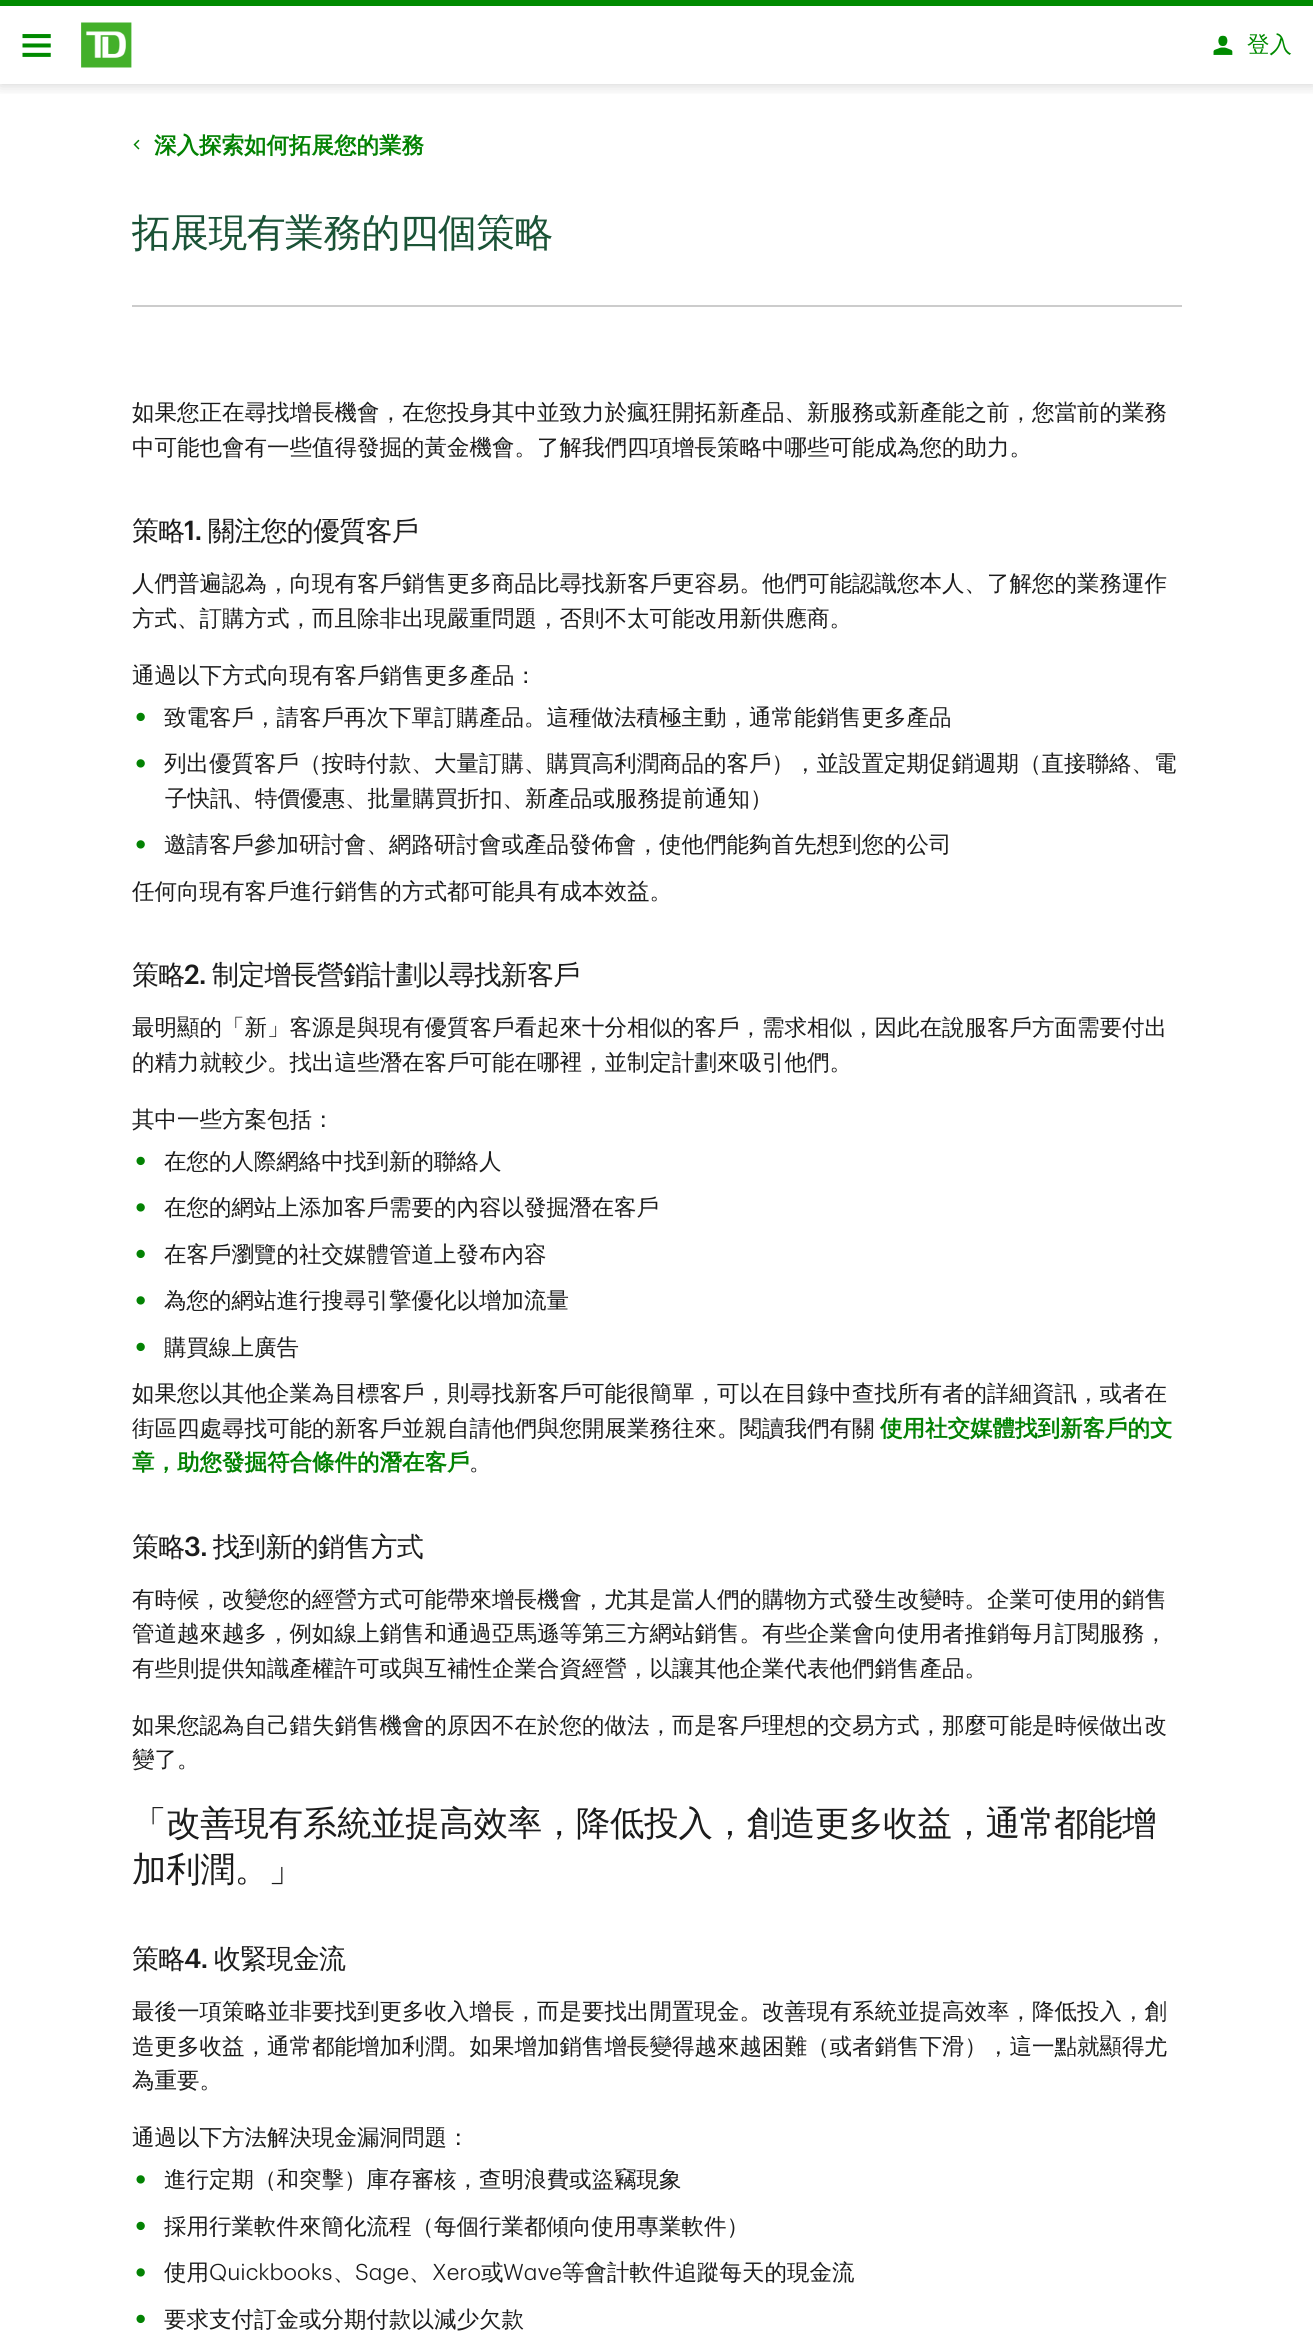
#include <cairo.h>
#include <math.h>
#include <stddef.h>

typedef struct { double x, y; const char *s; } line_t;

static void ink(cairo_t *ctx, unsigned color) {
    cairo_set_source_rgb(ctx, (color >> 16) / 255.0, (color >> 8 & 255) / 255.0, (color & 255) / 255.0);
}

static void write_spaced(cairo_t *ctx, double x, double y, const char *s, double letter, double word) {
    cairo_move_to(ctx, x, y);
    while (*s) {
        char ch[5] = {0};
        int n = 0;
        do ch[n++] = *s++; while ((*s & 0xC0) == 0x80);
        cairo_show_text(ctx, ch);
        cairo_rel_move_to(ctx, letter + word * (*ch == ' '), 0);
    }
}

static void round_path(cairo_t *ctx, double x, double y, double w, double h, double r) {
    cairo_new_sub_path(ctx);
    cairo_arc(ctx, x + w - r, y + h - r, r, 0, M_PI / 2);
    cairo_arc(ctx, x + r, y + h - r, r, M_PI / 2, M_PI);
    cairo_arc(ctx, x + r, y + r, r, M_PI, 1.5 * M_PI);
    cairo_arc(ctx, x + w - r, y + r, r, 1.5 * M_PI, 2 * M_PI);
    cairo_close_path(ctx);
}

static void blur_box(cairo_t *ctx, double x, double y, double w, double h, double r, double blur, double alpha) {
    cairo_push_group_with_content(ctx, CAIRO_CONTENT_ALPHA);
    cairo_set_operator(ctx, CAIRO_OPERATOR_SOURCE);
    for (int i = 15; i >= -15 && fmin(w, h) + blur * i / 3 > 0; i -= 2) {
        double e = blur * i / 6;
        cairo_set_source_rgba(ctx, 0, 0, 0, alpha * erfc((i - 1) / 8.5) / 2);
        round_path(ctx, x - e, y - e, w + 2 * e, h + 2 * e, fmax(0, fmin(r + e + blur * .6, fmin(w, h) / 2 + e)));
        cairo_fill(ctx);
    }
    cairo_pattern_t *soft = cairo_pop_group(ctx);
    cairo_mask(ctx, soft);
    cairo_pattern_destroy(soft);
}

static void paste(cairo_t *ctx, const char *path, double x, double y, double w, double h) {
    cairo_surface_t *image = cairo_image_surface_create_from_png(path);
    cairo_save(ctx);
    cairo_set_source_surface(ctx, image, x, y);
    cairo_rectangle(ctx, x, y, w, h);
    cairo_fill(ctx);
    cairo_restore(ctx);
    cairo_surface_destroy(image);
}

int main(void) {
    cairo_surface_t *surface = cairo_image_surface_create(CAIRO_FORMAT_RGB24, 1313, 2345);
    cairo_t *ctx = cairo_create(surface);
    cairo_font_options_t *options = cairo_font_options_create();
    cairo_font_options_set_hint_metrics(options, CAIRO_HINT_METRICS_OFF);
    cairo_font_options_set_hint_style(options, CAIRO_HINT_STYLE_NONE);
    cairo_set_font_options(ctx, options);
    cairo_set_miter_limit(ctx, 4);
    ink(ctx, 0xFFFFFF);
    cairo_paint(ctx);
    cairo_save(ctx);
    cairo_rectangle(ctx, 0, 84, 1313, 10);
    cairo_clip(ctx);
    ink(ctx, 0x000000);
    blur_box(ctx, 0, 0, 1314, 84, 0, 7.5, 0.2);
    cairo_restore(ctx);
    ink(ctx, 0x008A00);
    cairo_rectangle(ctx, 0, 0, 1313, 6);
    cairo_fill(ctx);
    paste(ctx, "media/1.png", 22, 34, 29, 23);
    paste(ctx, "media/2.png", 81, 22, 51, 46);
    paste(ctx, "media/3.png", 1213, 35, 20, 20);
    cairo_select_font_face(ctx, "WenQuanYi Zen Hei Medium", CAIRO_FONT_SLANT_NORMAL, CAIRO_FONT_WEIGHT_NORMAL);
    cairo_set_font_size(ctx, 22.5);
    cairo_move_to(ctx, 1247, 52);
    cairo_show_text(ctx, "登入");
    paste(ctx, "media/4.png", 133, 139, 7, 11);
    cairo_select_font_face(ctx, "WenQuanYi Zen Hei", CAIRO_FONT_SLANT_NORMAL, CAIRO_FONT_WEIGHT_BOLD);
    ink(ctx, 0x038203);
    cairo_move_to(ctx, 154, 153);
    cairo_show_text(ctx, "深入探索如何拓展您的業務");
    cairo_select_font_face(ctx, "WenQuanYi Zen Hei Medium", CAIRO_FONT_SLANT_NORMAL, CAIRO_FONT_WEIGHT_NORMAL);
    cairo_set_font_size(ctx, 39);
    ink(ctx, 0x1A5336);
    write_spaced(ctx, 132, 246, "拓展現有業務的四個策略", -0.75, 0);
    ink(ctx, 0xCCCCCC);
    cairo_rectangle(ctx, 132, 305, 1050, 2);
    cairo_fill(ctx);
    cairo_set_font_size(ctx, 22.5);
    ink(ctx, 0x1C1C1C);
    cairo_move_to(ctx, 132, 420);
    cairo_show_text(ctx, "如果您正在尋找增長機會，在您投身其中並致力於瘋狂開拓新產品、新服務或新產能之前，您當前的業務");
    cairo_move_to(ctx, 132, 455);
    cairo_show_text(ctx, "中可能也會有一些值得發掘的黃金機會。了解我們四項增長策略中哪些可能成為您的助力。");
    cairo_set_font_size(ctx, 27);
    write_spaced(ctx, 132, 540, "策略", -0.75, 0);
    cairo_select_font_face(ctx, "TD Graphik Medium", CAIRO_FONT_SLANT_NORMAL, CAIRO_FONT_WEIGHT_NORMAL);
    write_spaced(ctx, 184, 540, "1.", -0.75, 0);
    cairo_select_font_face(ctx, "WenQuanYi Zen Hei Medium", CAIRO_FONT_SLANT_NORMAL, CAIRO_FONT_WEIGHT_NORMAL);
    write_spaced(ctx, 208, 540, "關注您的優質客戶", -0.75, 0);
    cairo_set_font_size(ctx, 22.5);
    {
        static const line_t items[] = {
            {132, 591, "人們普遍認為，向現有客戶銷售更多商品比尋找新客戶更容易。他們可能認識您本人、了解您的業務運作"},
            {132, 626, "方式、訂購方式，而且除非出現嚴重問題，否則不太可能改用新供應商。"},
            {132, 683, "通過以下方式向現有客戶銷售更多產品："},
        };
        for (size_t i = 0; i < sizeof items / sizeof *items; i++) {
            cairo_move_to(ctx, items[i].x, items[i].y);
            cairo_show_text(ctx, items[i].s);
        }
    }
    paste(ctx, "media/5.png", 136, 712, 9, 10);
    cairo_move_to(ctx, 164, 725);
    cairo_show_text(ctx, "致電客戶，請客戶再次下單訂購產品。這種做法積極主動，通常能銷售更多產品");
    paste(ctx, "media/6.png", 136, 759, 9, 9);
    cairo_move_to(ctx, 164, 771);
    cairo_show_text(ctx, "列出優質客戶（按時付款、大量訂購、購買高利潤商品的客戶），並設置定期促銷週期（直接聯絡、電");
    cairo_move_to(ctx, 165, 806);
    cairo_show_text(ctx, "子快訊、特價優惠、批量購買折扣、新產品或服務提前通知）");
    paste(ctx, "media/6.png", 136, 840, 9, 9);
    cairo_move_to(ctx, 164, 852);
    cairo_show_text(ctx, "邀請客戶參加研討會、網路研討會或產品發佈會，使他們能夠首先想到您的公司");
    cairo_move_to(ctx, 132, 899);
    cairo_show_text(ctx, "任何向現有客戶進行銷售的方式都可能具有成本效益。");
    cairo_set_font_size(ctx, 27);
    write_spaced(ctx, 132, 984, "策略", -0.75, 0);
    cairo_select_font_face(ctx, "TD Graphik Medium", CAIRO_FONT_SLANT_NORMAL, CAIRO_FONT_WEIGHT_NORMAL);
    write_spaced(ctx, 184, 984, "2.", -0.75, 0);
    cairo_select_font_face(ctx, "WenQuanYi Zen Hei Medium", CAIRO_FONT_SLANT_NORMAL, CAIRO_FONT_WEIGHT_NORMAL);
    write_spaced(ctx, 212, 984, "制定增長營銷計劃以尋找新客戶", -0.75, 0);
    cairo_set_font_size(ctx, 22.5);
    {
        static const line_t items[] = {
            {132, 1035, "最明顯的「新」客源是與現有優質客戶看起來十分相似的客戶，需求相似，因此在說服客戶方面需要付出"},
            {132, 1070, "的精力就較少。找出這些潛在客戶可能在哪裡，並制定計劃來吸引他們。"},
            {132, 1127, "其中一些方案包括："},
        };
        for (size_t i = 0; i < sizeof items / sizeof *items; i++) {
            cairo_move_to(ctx, items[i].x, items[i].y);
            cairo_show_text(ctx, items[i].s);
        }
    }
    paste(ctx, "media/5.png", 136, 1156, 9, 10);
    cairo_move_to(ctx, 164, 1169);
    cairo_show_text(ctx, "在您的人際網絡中找到新的聯絡人");
    paste(ctx, "media/6.png", 136, 1203, 9, 9);
    cairo_move_to(ctx, 164, 1215);
    cairo_show_text(ctx, "在您的網站上添加客戶需要的內容以發掘潛在客戶");
    paste(ctx, "media/5.png", 136, 1249, 9, 10);
    cairo_move_to(ctx, 164, 1262);
    cairo_show_text(ctx, "在客戶瀏覽的社交媒體管道上發布內容");
    paste(ctx, "media/6.png", 136, 1296, 9, 9);
    cairo_move_to(ctx, 164, 1308);
    cairo_show_text(ctx, "為您的網站進行搜尋引擎優化以增加流量");
    paste(ctx, "media/5.png", 136, 1342, 9, 10);
    {
        static const line_t items[] = {
            {164, 1355, "購買線上廣告"},
            {132, 1401, "如果您以其他企業為目標客戶，則尋找新客戶可能很簡單，可以在目錄中查找所有者的詳細資訊，或者在"},
            {132, 1436, "街區四處尋找可能的新客戶並親自請他們與您開展業務往來。閱讀我們有關"},
        };
        for (size_t i = 0; i < sizeof items / sizeof *items; i++) {
            cairo_move_to(ctx, items[i].x, items[i].y);
            cairo_show_text(ctx, items[i].s);
        }
    }
    cairo_select_font_face(ctx, "WenQuanYi Zen Hei", CAIRO_FONT_SLANT_NORMAL, CAIRO_FONT_WEIGHT_BOLD);
    ink(ctx, 0x038203);
    cairo_move_to(ctx, 880, 1436);
    cairo_show_text(ctx, "使用社交媒體找到新客戶的文");
    cairo_move_to(ctx, 132, 1470);
    cairo_show_text(ctx, "章，助您發掘符合條件的潛在客戶");
    cairo_select_font_face(ctx, "WenQuanYi Zen Hei Medium", CAIRO_FONT_SLANT_NORMAL, CAIRO_FONT_WEIGHT_NORMAL);
    ink(ctx, 0x1C1C1C);
    cairo_move_to(ctx, 469, 1470);
    cairo_show_text(ctx, "。");
    cairo_set_font_size(ctx, 27);
    write_spaced(ctx, 132, 1556, "策略", -0.75, 0);
    cairo_select_font_face(ctx, "TD Graphik Medium", CAIRO_FONT_SLANT_NORMAL, CAIRO_FONT_WEIGHT_NORMAL);
    write_spaced(ctx, 184, 1556, "3.", -0.75, 0);
    cairo_select_font_face(ctx, "WenQuanYi Zen Hei Medium", CAIRO_FONT_SLANT_NORMAL, CAIRO_FONT_WEIGHT_NORMAL);
    write_spaced(ctx, 213, 1556, "找到新的銷售方式", -0.75, 0);
    cairo_set_font_size(ctx, 22.5);
    {
        static const line_t items[] = {
            {132, 1607, "有時候，改變您的經營方式可能帶來增長機會，尤其是當人們的購物方式發生改變時。企業可使用的銷售"},
            {132, 1641, "管道越來越多，例如線上銷售和通過亞馬遜等第三方網站銷售。有些企業會向使用者推銷每月訂閱服務，"},
            {132, 1676, "有些則提供知識產權許可或與互補性企業合資經營，以讓其他企業代表他們銷售產品。"},
            {132, 1733, "如果您認為自己錯失銷售機會的原因不在於您的做法，而是客戶理想的交易方式，那麼可能是時候做出改"},
            {132, 1767, "變了。"},
        };
        for (size_t i = 0; i < sizeof items / sizeof *items; i++) {
            cairo_move_to(ctx, items[i].x, items[i].y);
            cairo_show_text(ctx, items[i].s);
        }
    }
    cairo_set_font_size(ctx, 34.5);
    write_spaced(ctx, 132, 1835, "「改善現有系統並提高效率，降低投入，創造更多收益，通常都能增", -0.35, 0);
    write_spaced(ctx, 132, 1881, "加利潤。」", -0.35, 0);
    cairo_set_font_size(ctx, 27);
    write_spaced(ctx, 132, 1968, "策略", -0.75, 0);
    cairo_select_font_face(ctx, "TD Graphik Medium", CAIRO_FONT_SLANT_NORMAL, CAIRO_FONT_WEIGHT_NORMAL);
    write_spaced(ctx, 184, 1968, "4.", -0.75, 0);
    cairo_select_font_face(ctx, "WenQuanYi Zen Hei Medium", CAIRO_FONT_SLANT_NORMAL, CAIRO_FONT_WEIGHT_NORMAL);
    write_spaced(ctx, 214, 1968, "收緊現金流", -0.75, 0);
    cairo_set_font_size(ctx, 22.5);
    {
        static const line_t items[] = {
            {132, 2019, "最後一項策略並非要找到更多收入增長，而是要找出閒置現金。改善現有系統並提高效率，降低投入，創"},
            {132, 2054, "造更多收益，通常都能增加利潤。如果增加銷售增長變得越來越困難（或者銷售下滑），這一點就顯得尤"},
            {132, 2088, "為重要。"},
            {132, 2145, "通過以下方法解決現金漏洞問題："},
        };
        for (size_t i = 0; i < sizeof items / sizeof *items; i++) {
            cairo_move_to(ctx, items[i].x, items[i].y);
            cairo_show_text(ctx, items[i].s);
        }
    }
    paste(ctx, "media/6.png", 136, 2175, 9, 9);
    cairo_move_to(ctx, 164, 2187);
    cairo_show_text(ctx, "進行定期（和突擊）庫存審核，查明浪費或盜竊現象");
    paste(ctx, "media/5.png", 136, 2221, 9, 10);
    cairo_move_to(ctx, 164, 2234);
    cairo_show_text(ctx, "採用行業軟件來簡化流程（每個行業都傾向使用專業軟件）");
    paste(ctx, "media/6.png", 136, 2268, 9, 9);
    cairo_move_to(ctx, 164, 2280);
    cairo_show_text(ctx, "使用");
    cairo_select_font_face(ctx, "TD Graphik Light", CAIRO_FONT_SLANT_NORMAL, CAIRO_FONT_WEIGHT_NORMAL);
    {
        static const line_t items[] = {
            {209, 2280, "Quickbooks"},
            {355, 2280, "Sage"},
            {432, 2280, "Xero"},
        };
        for (size_t i = 0; i < sizeof items / sizeof *items; i++) {
            cairo_move_to(ctx, items[i].x, items[i].y);
            cairo_show_text(ctx, items[i].s);
        }
    }
    cairo_select_font_face(ctx, "WenQuanYi Zen Hei Medium", CAIRO_FONT_SLANT_NORMAL, CAIRO_FONT_WEIGHT_NORMAL);
    cairo_move_to(ctx, 481, 2280);
    cairo_show_text(ctx, "或");
    cairo_select_font_face(ctx, "TD Graphik Light", CAIRO_FONT_SLANT_NORMAL, CAIRO_FONT_WEIGHT_NORMAL);
    cairo_move_to(ctx, 503, 2280);
    cairo_show_text(ctx, "Wave");
    cairo_select_font_face(ctx, "WenQuanYi Zen Hei Medium", CAIRO_FONT_SLANT_NORMAL, CAIRO_FONT_WEIGHT_NORMAL);
    {
        static const line_t items[] = {
            {562, 2280, "等會計軟件追蹤每天的現金流"},
            {333, 2280, "、"},
            {409, 2280, "、"},
        };
        for (size_t i = 0; i < sizeof items / sizeof *items; i++) {
            cairo_move_to(ctx, items[i].x, items[i].y);
            cairo_show_text(ctx, items[i].s);
        }
    }
    paste(ctx, "media/5.png", 136, 2314, 9, 10);
    cairo_move_to(ctx, 164, 2327);
    cairo_show_text(ctx, "要求支付訂金或分期付款以減少欠款");
    cairo_surface_write_to_png(surface, "image.png");
    cairo_font_options_destroy(options);
    cairo_destroy(ctx);
    cairo_surface_destroy(surface);
    return 0;
}
